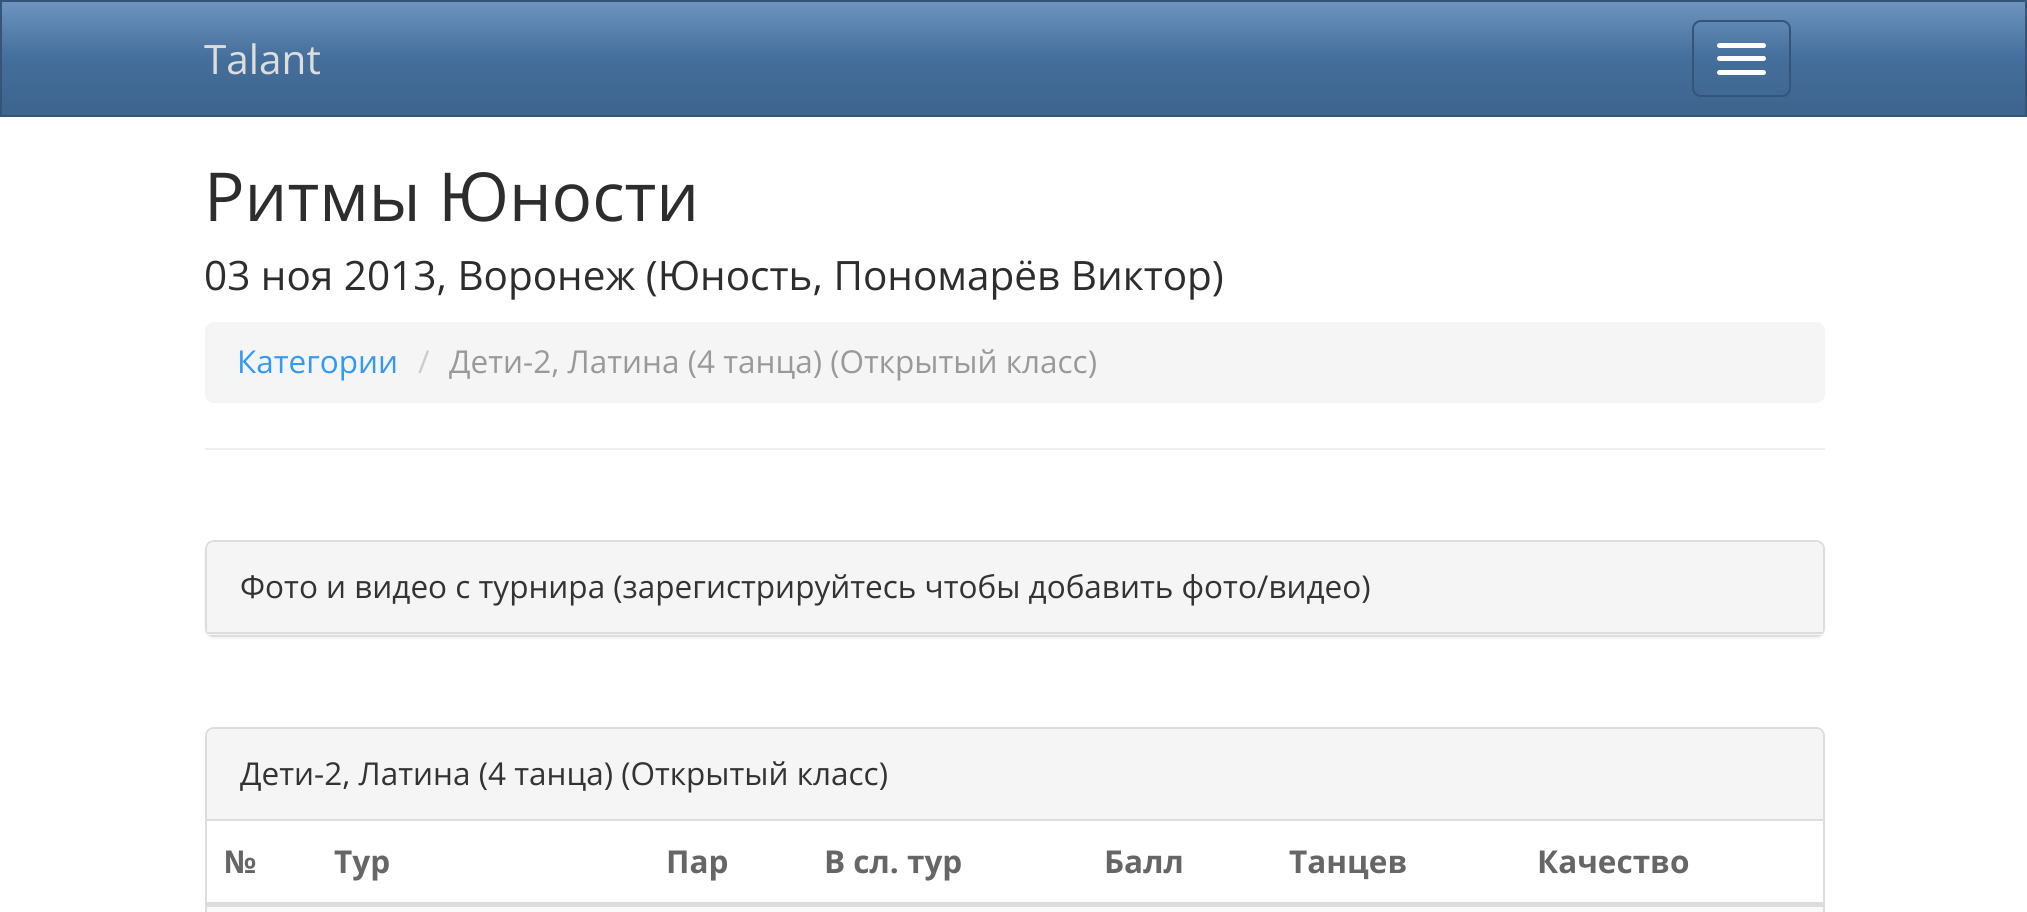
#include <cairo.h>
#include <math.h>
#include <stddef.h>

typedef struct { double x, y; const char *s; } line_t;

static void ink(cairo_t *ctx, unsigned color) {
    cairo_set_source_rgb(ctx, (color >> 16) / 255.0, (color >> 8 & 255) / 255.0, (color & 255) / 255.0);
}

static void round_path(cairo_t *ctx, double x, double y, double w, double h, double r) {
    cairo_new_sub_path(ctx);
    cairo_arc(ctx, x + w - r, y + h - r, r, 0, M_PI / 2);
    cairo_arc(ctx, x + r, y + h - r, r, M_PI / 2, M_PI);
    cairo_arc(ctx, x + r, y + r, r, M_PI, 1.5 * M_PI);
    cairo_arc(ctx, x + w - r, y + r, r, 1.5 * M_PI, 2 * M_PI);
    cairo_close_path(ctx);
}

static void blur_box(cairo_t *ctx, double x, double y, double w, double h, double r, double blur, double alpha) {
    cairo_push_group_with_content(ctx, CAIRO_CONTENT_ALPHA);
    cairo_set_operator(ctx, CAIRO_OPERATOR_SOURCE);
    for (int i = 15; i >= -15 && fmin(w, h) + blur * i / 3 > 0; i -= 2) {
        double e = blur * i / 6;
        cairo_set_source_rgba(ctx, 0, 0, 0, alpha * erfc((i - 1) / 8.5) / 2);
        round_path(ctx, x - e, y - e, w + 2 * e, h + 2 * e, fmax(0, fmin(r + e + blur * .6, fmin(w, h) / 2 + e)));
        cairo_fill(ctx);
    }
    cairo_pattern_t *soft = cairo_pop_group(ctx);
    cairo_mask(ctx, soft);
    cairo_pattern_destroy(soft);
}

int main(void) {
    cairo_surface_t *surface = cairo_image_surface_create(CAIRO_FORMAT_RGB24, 2027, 912);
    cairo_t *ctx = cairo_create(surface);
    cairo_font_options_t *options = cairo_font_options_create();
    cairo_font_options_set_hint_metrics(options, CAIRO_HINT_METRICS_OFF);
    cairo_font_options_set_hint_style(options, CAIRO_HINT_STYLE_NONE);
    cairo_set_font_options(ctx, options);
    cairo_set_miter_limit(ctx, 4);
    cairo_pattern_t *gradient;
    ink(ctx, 0xFFFFFF);
    cairo_paint(ctx);
    gradient = cairo_pattern_create_linear(1014, 2.2, 1014, 115);
    cairo_pattern_add_color_stop_rgba(gradient, 0, 0.427, 0.58, 0.749, 1);
    cairo_pattern_add_color_stop_rgba(gradient, 0.5, 0.267, 0.431, 0.608, 1);
    cairo_pattern_add_color_stop_rgba(gradient, 1, 0.243, 0.392, 0.553, 1);
    cairo_set_source(ctx, gradient);
    cairo_pattern_destroy(gradient);
    cairo_rectangle(ctx, 2, 2, 2023, 113);
    cairo_fill(ctx);
    cairo_rectangle(ctx, 1, 1, 2025, 115);
    ink(ctx, 0x345578);
    cairo_stroke(ctx);
    cairo_select_font_face(ctx, "Open Sans", CAIRO_FONT_SLANT_NORMAL, CAIRO_FONT_WEIGHT_NORMAL);
    cairo_set_font_size(ctx, 40.5);
    ink(ctx, 0xDDDDDD);
    cairo_move_to(ctx, 204, 74);
    cairo_show_text(ctx, "Talant");
    round_path(ctx, 1693, 21, 97, 75, 8);
    ink(ctx, 0x345578);
    cairo_stroke(ctx);
    ink(ctx, 0xFFFFFF);
    round_path(ctx, 1717, 43, 49, 5, 2.5);
    cairo_fill(ctx);
    round_path(ctx, 1717, 56, 49, 5, 2.5);
    cairo_fill(ctx);
    round_path(ctx, 1717, 70, 49, 5, 2.5);
    cairo_fill(ctx);
    cairo_set_font_size(ctx, 67.5);
    ink(ctx, 0x2D2D2D);
    cairo_move_to(ctx, 204, 221);
    cairo_show_text(ctx, "Ритмы Юности");
    cairo_set_font_size(ctx, 40.5);
    cairo_move_to(ctx, 204, 290);
    cairo_show_text(ctx, "03 ноя 2013, Воронеж (Юность, Пономарёв Виктор)");
    ink(ctx, 0xF5F5F5);
    round_path(ctx, 205, 322, 1620, 81, 9);
    cairo_fill(ctx);
    cairo_set_font_size(ctx, 31.5);
    ink(ctx, 0x3399F3);
    cairo_move_to(ctx, 237, 373);
    cairo_show_text(ctx, "Категории");
    ink(ctx, 0xCCCCCC);
    cairo_move_to(ctx, 418, 373);
    cairo_show_text(ctx, "/");
    ink(ctx, 0x999999);
    cairo_move_to(ctx, 449, 373);
    cairo_show_text(ctx, "Дети-2, Латина (4 танца) (Открытый класс)");
    ink(ctx, 0xEEEEEE);
    cairo_rectangle(ctx, 205, 448, 1620, 2);
    cairo_fill(ctx);
    ink(ctx, 0x000000);
    blur_box(ctx, 205, 542, 1620, 97, 9, 1, 0.05);
    round_path(ctx, 206, 541, 1618, 95, 8);
    ink(ctx, 0xDDDDDD);
    cairo_stroke(ctx);
    ink(ctx, 0xF5F5F5);
    cairo_new_path(ctx);
    cairo_move_to(ctx, 214, 542);
    cairo_line_to(ctx, 1816, 542);
    cairo_curve_to(ctx, 1820, 542, 1823, 545, 1823, 549);
    cairo_line_to(ctx, 1823, 635);
    cairo_line_to(ctx, 207, 635);
    cairo_line_to(ctx, 207, 549);
    cairo_curve_to(ctx, 207, 545, 210, 542, 214, 542);
    cairo_close_path(ctx);
    cairo_fill(ctx);
    ink(ctx, 0xDDDDDD);
    cairo_rectangle(ctx, 207, 632, 1616, 2);
    cairo_fill(ctx);
    ink(ctx, 0x333333);
    cairo_move_to(ctx, 240, 598);
    cairo_show_text(ctx, "Фото и видео с турнира (зарегистрируйтесь чтобы добавить фото/видео)");
    round_path(ctx, 206, 728, 1618, 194, 8);
    ink(ctx, 0xDDDDDD);
    cairo_stroke(ctx);
    ink(ctx, 0xF5F5F5);
    cairo_new_path(ctx);
    cairo_move_to(ctx, 214, 729);
    cairo_line_to(ctx, 1816, 729);
    cairo_curve_to(ctx, 1820, 729, 1823, 732, 1823, 736);
    cairo_line_to(ctx, 1823, 821);
    cairo_line_to(ctx, 207, 821);
    cairo_line_to(ctx, 207, 736);
    cairo_curve_to(ctx, 207, 732, 210, 729, 214, 729);
    cairo_close_path(ctx);
    cairo_fill(ctx);
    ink(ctx, 0xDDDDDD);
    cairo_rectangle(ctx, 207, 819, 1616, 2);
    cairo_fill(ctx);
    ink(ctx, 0x333333);
    cairo_move_to(ctx, 240, 785);
    cairo_show_text(ctx, "Дети-2, Латина (4 танца) (Открытый класс)");
    cairo_select_font_face(ctx, "Open Sans", CAIRO_FONT_SLANT_NORMAL, CAIRO_FONT_WEIGHT_BOLD);
    ink(ctx, 0x666666);
    {
        static const line_t items[] = {
            {224, 873, "№"},
            {334, 873, "Тур"},
            {666, 873, "Пар"},
            {824, 873, "В сл. тур"},
            {1104, 873, "Балл"},
            {1289, 873, "Танцев"},
        };
        for (size_t i = 0; i < sizeof items / sizeof *items; i++) {
            cairo_move_to(ctx, items[i].x, items[i].y);
            cairo_show_text(ctx, items[i].s);
        }
    }
    ink(ctx, 0xDDDDDD);
    cairo_rectangle(ctx, 205, 902, 1620, 5);
    cairo_fill(ctx);
    ink(ctx, 0x666666);
    cairo_move_to(ctx, 1537, 873);
    cairo_show_text(ctx, "Качество");
    ink(ctx, 0xF9F9F9);
    cairo_rectangle(ctx, 207, 907, 1616, 5);
    cairo_fill(ctx);
    cairo_surface_write_to_png(surface, "image.png");
    cairo_font_options_destroy(options);
    cairo_destroy(ctx);
    cairo_surface_destroy(surface);
    return 0;
}
